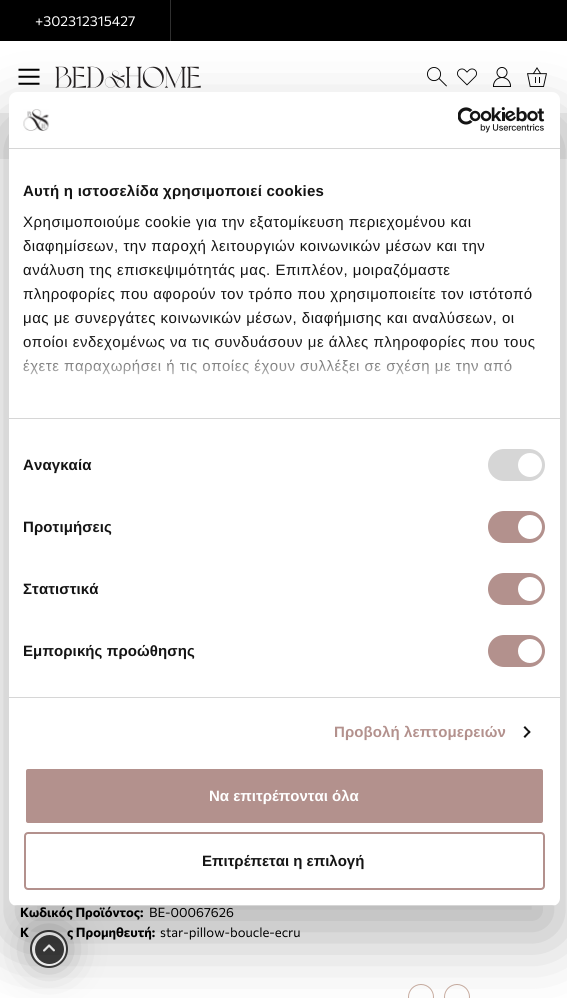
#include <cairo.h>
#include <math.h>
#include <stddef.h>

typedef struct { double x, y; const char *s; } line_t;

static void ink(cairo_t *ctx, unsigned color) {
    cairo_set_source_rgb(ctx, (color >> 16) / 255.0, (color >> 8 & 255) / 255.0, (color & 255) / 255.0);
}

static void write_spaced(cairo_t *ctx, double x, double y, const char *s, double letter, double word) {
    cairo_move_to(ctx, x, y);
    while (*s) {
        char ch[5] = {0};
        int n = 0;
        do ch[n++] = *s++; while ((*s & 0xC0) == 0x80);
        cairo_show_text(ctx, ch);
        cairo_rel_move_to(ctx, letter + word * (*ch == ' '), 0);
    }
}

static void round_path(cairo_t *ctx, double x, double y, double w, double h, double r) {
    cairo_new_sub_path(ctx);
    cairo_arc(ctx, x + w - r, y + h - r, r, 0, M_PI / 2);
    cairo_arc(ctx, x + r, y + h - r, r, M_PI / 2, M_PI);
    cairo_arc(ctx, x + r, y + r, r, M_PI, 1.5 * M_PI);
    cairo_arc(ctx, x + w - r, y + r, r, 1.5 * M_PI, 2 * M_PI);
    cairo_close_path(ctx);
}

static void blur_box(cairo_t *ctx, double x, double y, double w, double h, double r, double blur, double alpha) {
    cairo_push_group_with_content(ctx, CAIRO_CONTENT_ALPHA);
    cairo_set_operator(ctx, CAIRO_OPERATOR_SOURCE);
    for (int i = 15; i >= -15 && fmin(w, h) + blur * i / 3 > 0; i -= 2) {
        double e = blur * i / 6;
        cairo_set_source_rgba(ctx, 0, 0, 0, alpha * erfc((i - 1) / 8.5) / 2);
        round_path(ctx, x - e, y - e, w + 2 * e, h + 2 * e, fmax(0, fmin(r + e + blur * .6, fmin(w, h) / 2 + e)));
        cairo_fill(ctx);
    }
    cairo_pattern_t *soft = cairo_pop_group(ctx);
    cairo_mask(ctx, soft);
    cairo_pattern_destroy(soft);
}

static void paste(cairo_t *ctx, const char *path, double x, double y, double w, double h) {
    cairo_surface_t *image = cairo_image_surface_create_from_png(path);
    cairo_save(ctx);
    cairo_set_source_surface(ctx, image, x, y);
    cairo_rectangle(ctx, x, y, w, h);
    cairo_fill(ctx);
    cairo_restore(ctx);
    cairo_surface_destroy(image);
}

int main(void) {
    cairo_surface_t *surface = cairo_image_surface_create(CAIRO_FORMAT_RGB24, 567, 998);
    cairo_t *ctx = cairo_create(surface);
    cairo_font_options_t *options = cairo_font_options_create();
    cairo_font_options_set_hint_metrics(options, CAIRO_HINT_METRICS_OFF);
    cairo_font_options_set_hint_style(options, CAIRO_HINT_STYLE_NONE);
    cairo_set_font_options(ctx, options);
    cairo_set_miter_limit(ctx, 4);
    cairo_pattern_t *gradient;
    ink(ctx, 0xFFFFFF);
    cairo_paint(ctx);
    ink(ctx, 0x000000);
    cairo_rectangle(ctx, 0, 0, 567, 41);
    cairo_fill(ctx);
    cairo_select_font_face(ctx, "Commissioner", CAIRO_FONT_SLANT_NORMAL, CAIRO_FONT_WEIGHT_NORMAL);
    cairo_set_font_size(ctx, 14);
    ink(ctx, 0xFFFFFF);
    cairo_move_to(ctx, 35, 26);
    cairo_show_text(ctx, "+302312315427");
    ink(ctx, 0x303030);
    cairo_rectangle(ctx, 170, 0, 1, 41);
    cairo_fill(ctx);
    paste(ctx, "media/1.png", 18, 68, 22, 17);
    paste(ctx, "media/2.png", 55, 66, 146, 22);
    paste(ctx, "media/3.png", 427, 67, 20, 20);
    paste(ctx, "media/4.png", 457, 68, 20, 18);
    paste(ctx, "media/5.png", 493, 67, 18, 20);
    paste(ctx, "media/6.png", 527, 67, 20, 20);
    ink(ctx, 0xF0F0F0);
    cairo_rectangle(ctx, 0, 113, 567, 46);
    cairo_fill(ctx);
    ink(ctx, 0x000000);
    blur_box(ctx, 40, 940, 18, 18, 9, 20, 0.5);
    cairo_select_font_face(ctx, "Commissioner", CAIRO_FONT_SLANT_NORMAL, CAIRO_FONT_WEIGHT_BOLD);
    cairo_set_font_size(ctx, 13);
    ink(ctx, 0x000000);
    cairo_move_to(ctx, 67, 937);
    cairo_show_text(ctx, "ς Προμηθευτή:");
    ink(ctx, 0xFFFFFF);
    cairo_new_path(ctx);
    cairo_arc(ctx, 49, 949, 18, 0, 2 * M_PI);
    cairo_fill_preserve(ctx);
    ink(ctx, 0x3C3C3C);
    cairo_stroke(ctx);
    cairo_arc(ctx, 49.5, 949.5, 14.5, 0, 2 * M_PI);
    cairo_fill(ctx);
    paste(ctx, "media/7.png", 43, 944, 12, 8);
    ink(ctx, 0x000000);
    cairo_move_to(ctx, 20, 917);
    cairo_show_text(ctx, "Κωδικός Προϊόντος:");
    cairo_select_font_face(ctx, "Commissioner", CAIRO_FONT_SLANT_NORMAL, CAIRO_FONT_WEIGHT_NORMAL);
    cairo_move_to(ctx, 149, 917);
    cairo_show_text(ctx, "BE-00067626");
    cairo_select_font_face(ctx, "Commissioner", CAIRO_FONT_SLANT_NORMAL, CAIRO_FONT_WEIGHT_BOLD);
    cairo_move_to(ctx, 20, 937);
    cairo_show_text(ctx, "Κ");
    cairo_select_font_face(ctx, "Commissioner", CAIRO_FONT_SLANT_NORMAL, CAIRO_FONT_WEIGHT_NORMAL);
    cairo_move_to(ctx, 160, 937);
    cairo_show_text(ctx, "star-pillow-boucle-ecru");
    cairo_new_path(ctx);
    cairo_arc(ctx, 421, 997, 12.5, 0, 2 * M_PI);
    ink(ctx, 0xCAAEA2);
    cairo_set_line_width(ctx, 1);
    cairo_stroke(ctx);
    cairo_arc(ctx, 457, 997, 12.5, 0, 2 * M_PI);
    cairo_stroke(ctx);
    ink(ctx, 0x000000);
    blur_box(ctx, 9, 124, 551, 814, 8, 34, 0.3);
    ink(ctx, 0xFFFFFF);
    round_path(ctx, 9, 92, 551, 814, 8);
    cairo_fill(ctx);
    ink(ctx, 0xD6D6D6);
    cairo_rectangle(ctx, 9, 148, 551, 1);
    cairo_fill(ctx);
    paste(ctx, "media/8.png", 23, 109, 26, 22);
    paste(ctx, "media/9.png", 458, 107, 87, 26);
    cairo_rectangle(ctx, 9, 418, 551, 1);
    cairo_fill(ctx);
    cairo_select_font_face(ctx, "Liberation Sans", CAIRO_FONT_SLANT_NORMAL, CAIRO_FONT_WEIGHT_BOLD);
    cairo_set_font_size(ctx, 15);
    ink(ctx, 0x141414);
    write_spaced(ctx, 23, 196, "Αυτή η ιστοσελίδα χρησιμοποιεί cookies", 0.25, 0);
    cairo_select_font_face(ctx, "Liberation Sans", CAIRO_FONT_SLANT_NORMAL, CAIRO_FONT_WEIGHT_NORMAL);
    {
        static const line_t items[] = {
            {23, 227, "Χρησιμοποιούμε cookie για την εξατομίκευση περιεχομένου και"},
            {23, 251, "διαφημίσεων, την παροχή λειτουργιών κοινωνικών μέσων και την"},
            {23, 275, "ανάλυση της επισκεψιμότητάς μας. Επιπλέον, μοιραζόμαστε"},
            {23, 299, "πληροφορίες που αφορούν τον τρόπο που χρησιμοποιείτε τον ιστότοπό"},
            {23, 323, "μας με συνεργάτες κοινωνικών μέσων, διαφήμισης και αναλύσεων, οι"},
            {23, 347, "οποίοι ενδεχομένως να τις συνδυάσουν με άλλες πληροφορίες που τους"},
            {23, 371, "έχετε παραχωρήσει ή τις οποίες έχουν συλλέξει σε σχέση με την από"},
        };
        for (size_t i = 0; i < sizeof items / sizeof *items; i++) {
            write_spaced(ctx, items[i].x, items[i].y, items[i].s, 0.5, 0);
        }
    }
    gradient = cairo_pattern_create_linear(278, 418, 278, 343);
    cairo_pattern_add_color_stop_rgba(gradient, 0, 1, 1, 1, 1);
    cairo_pattern_add_color_stop_rgba(gradient, 0.5, 1, 1, 1, 0.8);
    cairo_pattern_add_color_stop_rgba(gradient, 1, 1, 1, 1, 0);
    cairo_set_source(ctx, gradient);
    cairo_pattern_destroy(gradient);
    cairo_rectangle(ctx, 23, 344, 512, 31);
    cairo_fill(ctx);
    ink(ctx, 0xD6D6D6);
    cairo_rectangle(ctx, 9, 697, 551, 1);
    cairo_fill(ctx);
    cairo_select_font_face(ctx, "Liberation Sans", CAIRO_FONT_SLANT_NORMAL, CAIRO_FONT_WEIGHT_BOLD);
    ink(ctx, 0x141414);
    write_spaced(ctx, 23, 470, "Αναγκαία", 0.1, 0);
    ink(ctx, 0xD6D6D6);
    round_path(ctx, 488, 449, 57, 32, 16);
    cairo_fill(ctx);
    ink(ctx, 0xFFFFFF);
    cairo_arc(ctx, 530, 465, 12, 0, 2 * M_PI);
    cairo_fill(ctx);
    ink(ctx, 0x141414);
    write_spaced(ctx, 23, 532, "Προτιμήσεις", 0.1, 0);
    ink(ctx, 0xB3918D);
    round_path(ctx, 488, 511, 57, 32, 16);
    cairo_fill(ctx);
    ink(ctx, 0xFFFFFF);
    cairo_arc(ctx, 530, 527, 12, 0, 2 * M_PI);
    cairo_fill(ctx);
    ink(ctx, 0x141414);
    write_spaced(ctx, 23, 594, "Στατιστικά", 0.1, 0);
    ink(ctx, 0xB3918D);
    round_path(ctx, 488, 573, 57, 32, 16);
    cairo_fill(ctx);
    ink(ctx, 0xFFFFFF);
    cairo_arc(ctx, 530, 589, 12, 0, 2 * M_PI);
    cairo_fill(ctx);
    ink(ctx, 0x141414);
    write_spaced(ctx, 23, 656, "Εμπορικής προώθησης", 0.1, 0);
    ink(ctx, 0xB3918D);
    round_path(ctx, 488, 635, 57, 32, 16);
    cairo_fill(ctx);
    ink(ctx, 0xFFFFFF);
    cairo_arc(ctx, 530, 651, 12, 0, 2 * M_PI);
    cairo_fill(ctx);
    ink(ctx, 0xB3918D);
    write_spaced(ctx, 334, 737, "Προβολή λεπτομερειών", 0.1, 0);
    ink(ctx, 0x141414);
    cairo_new_path(ctx);
    cairo_move_to(ctx, 525, 726);
    cairo_line_to(ctx, 530.5, 732);
    cairo_line_to(ctx, 529.5, 733.5);
    cairo_line_to(ctx, 523.5, 727.5);
    cairo_close_path(ctx);
    cairo_fill(ctx);
    cairo_new_path(ctx);
    cairo_move_to(ctx, 529.5, 730.5);
    cairo_line_to(ctx, 530.5, 732);
    cairo_line_to(ctx, 525, 738);
    cairo_line_to(ctx, 523.5, 736.5);
    cairo_close_path(ctx);
    cairo_fill(ctx);
    cairo_save(ctx);
    round_path(ctx, 9, 92, 551, 814, 8);
    cairo_clip(ctx);
    ink(ctx, 0xD6D6D6);
    cairo_rectangle(ctx, 9, 905, 551, 1);
    cairo_fill(ctx);
    cairo_restore(ctx);
    ink(ctx, 0xB3918D);
    round_path(ctx, 25, 768, 519, 56, 3);
    cairo_fill_preserve(ctx);
    ink(ctx, 0xFFFFFF);
    cairo_set_line_width(ctx, 2);
    cairo_stroke(ctx);
    cairo_move_to(ctx, 209, 801);
    cairo_show_text(ctx, "Να επιτρέπονται όλα");
    round_path(ctx, 25, 833, 519, 56, 3);
    ink(ctx, 0xB3918D);
    cairo_stroke(ctx);
    ink(ctx, 0x141414);
    cairo_move_to(ctx, 202, 866);
    cairo_show_text(ctx, "Επιτρέπεται η επιλογή");
    cairo_surface_write_to_png(surface, "image.png");
    cairo_font_options_destroy(options);
    cairo_destroy(ctx);
    cairo_surface_destroy(surface);
    return 0;
}
